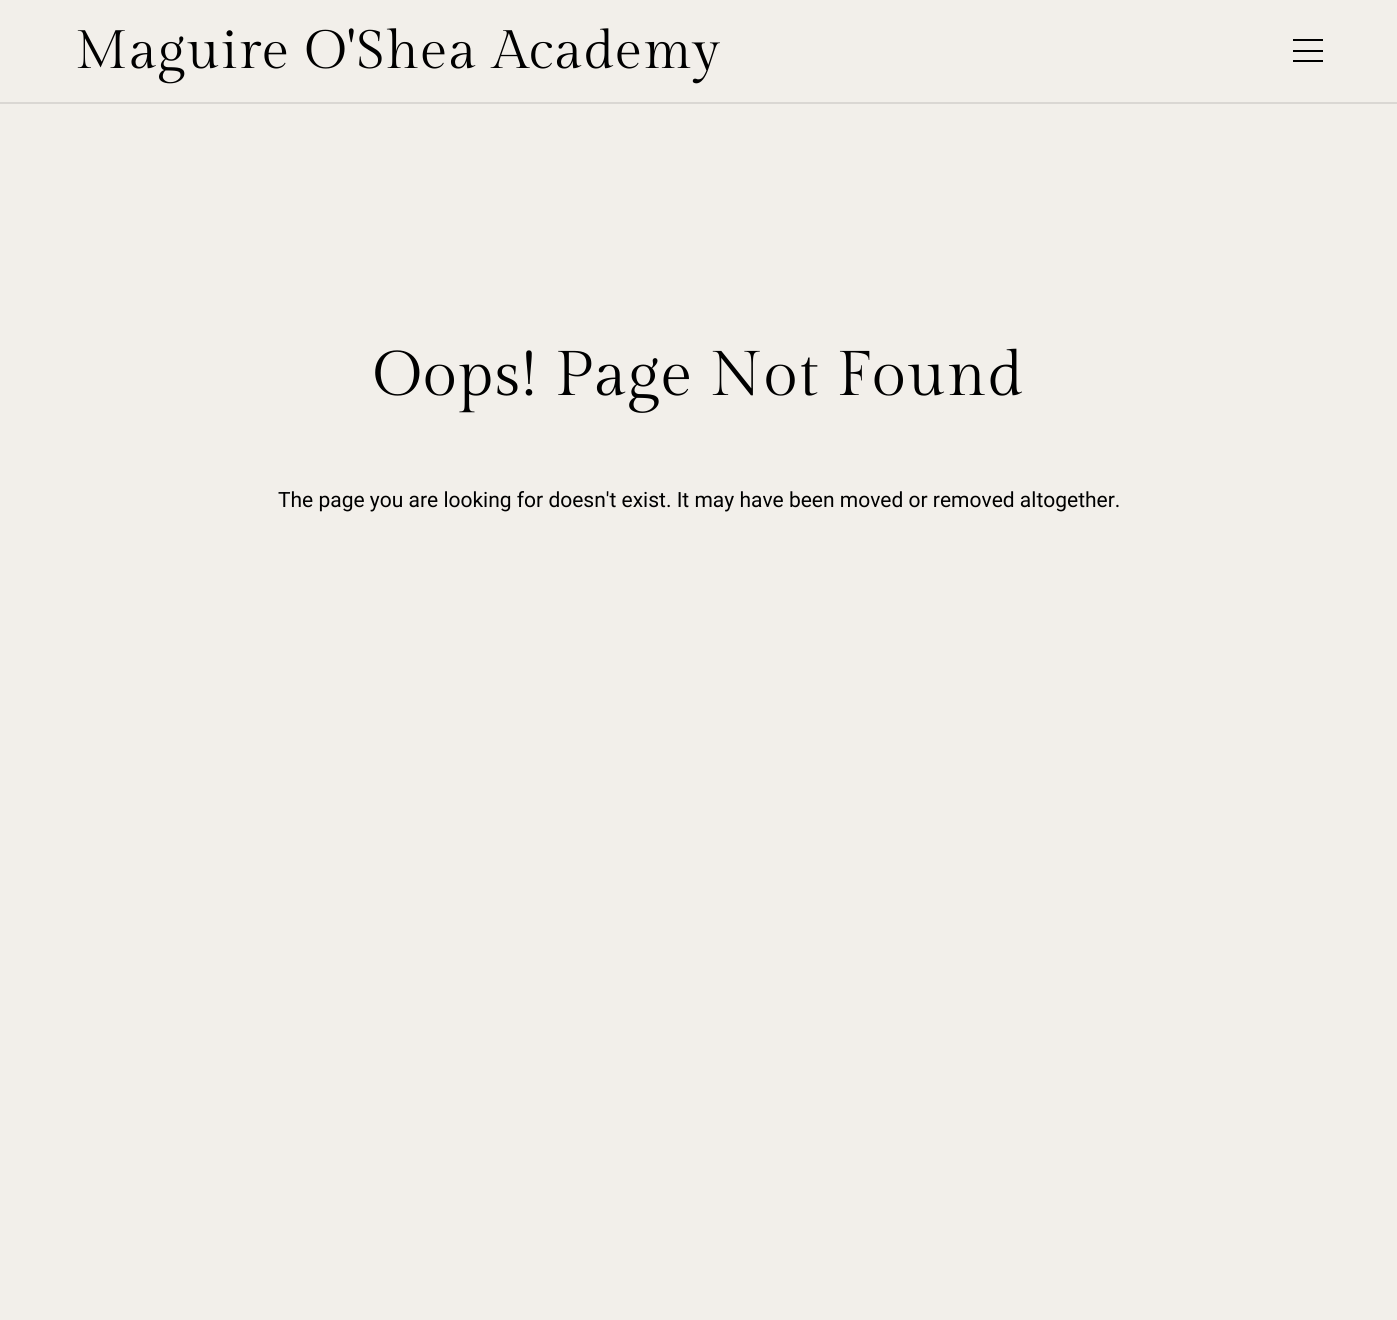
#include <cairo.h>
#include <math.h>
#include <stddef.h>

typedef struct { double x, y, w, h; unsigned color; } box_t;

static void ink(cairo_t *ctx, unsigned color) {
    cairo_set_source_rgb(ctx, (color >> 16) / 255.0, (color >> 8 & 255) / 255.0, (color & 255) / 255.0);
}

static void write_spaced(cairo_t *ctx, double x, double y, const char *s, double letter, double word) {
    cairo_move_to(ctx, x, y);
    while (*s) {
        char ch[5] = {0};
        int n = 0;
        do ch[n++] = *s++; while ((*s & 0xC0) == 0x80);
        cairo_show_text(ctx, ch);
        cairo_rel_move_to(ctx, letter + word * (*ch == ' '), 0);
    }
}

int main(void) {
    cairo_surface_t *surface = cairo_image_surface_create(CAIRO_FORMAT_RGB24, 1397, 1320);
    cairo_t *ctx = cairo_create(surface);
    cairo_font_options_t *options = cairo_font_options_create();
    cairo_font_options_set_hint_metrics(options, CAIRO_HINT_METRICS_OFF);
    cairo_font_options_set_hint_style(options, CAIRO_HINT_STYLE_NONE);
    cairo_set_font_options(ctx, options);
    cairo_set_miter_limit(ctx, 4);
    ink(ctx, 0xF2EFEA);
    cairo_paint(ctx);
    ink(ctx, 0xDAD7D3);
    cairo_rectangle(ctx, 0, 102, 1397, 2);
    cairo_fill(ctx);
    cairo_select_font_face(ctx, "Gilda Display", CAIRO_FONT_SLANT_NORMAL, CAIRO_FONT_WEIGHT_NORMAL);
    cairo_set_font_size(ctx, 54);
    ink(ctx, 0x000000);
    write_spaced(ctx, 75, 68, "Maguire O'Shea Academy", 1.1, 0);
    {
        static const box_t items[] = {
            {1293, 60, 30, 2, 0x000000},
            {1293, 39, 30, 2, 0x000000},
            {1293, 50, 30, 2, 0x000000},
        };
        for (size_t i = 0; i < sizeof items / sizeof *items; i++) {
            ink(ctx, items[i].color);
            cairo_rectangle(ctx, items[i].x, items[i].y, items[i].w, items[i].h);
            cairo_fill(ctx);
        }
    }
    cairo_set_font_size(ctx, 63);
    write_spaced(ctx, 373, 395, "Oops! Page Not Found", 1.25, 0);
    cairo_select_font_face(ctx, "Roboto", CAIRO_FONT_SLANT_NORMAL, CAIRO_FONT_WEIGHT_NORMAL);
    cairo_set_font_size(ctx, 21);
    cairo_move_to(ctx, 278, 507);
    cairo_show_text(ctx, "The page you are looking for doesn't exist. It may have been moved or removed altogether.");
    cairo_surface_write_to_png(surface, "image.png");
    cairo_font_options_destroy(options);
    cairo_destroy(ctx);
    cairo_surface_destroy(surface);
    return 0;
}
